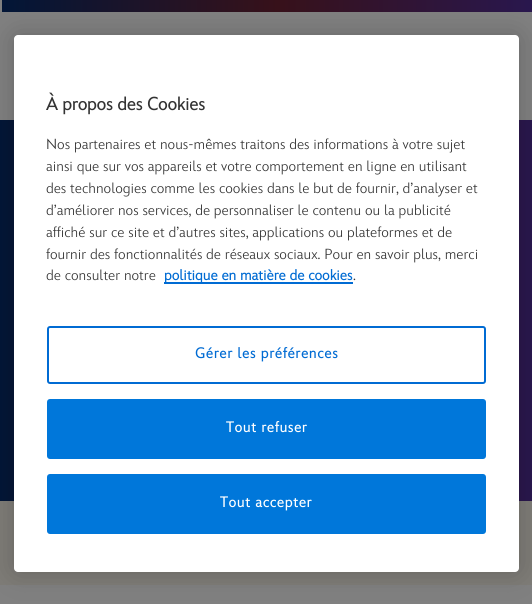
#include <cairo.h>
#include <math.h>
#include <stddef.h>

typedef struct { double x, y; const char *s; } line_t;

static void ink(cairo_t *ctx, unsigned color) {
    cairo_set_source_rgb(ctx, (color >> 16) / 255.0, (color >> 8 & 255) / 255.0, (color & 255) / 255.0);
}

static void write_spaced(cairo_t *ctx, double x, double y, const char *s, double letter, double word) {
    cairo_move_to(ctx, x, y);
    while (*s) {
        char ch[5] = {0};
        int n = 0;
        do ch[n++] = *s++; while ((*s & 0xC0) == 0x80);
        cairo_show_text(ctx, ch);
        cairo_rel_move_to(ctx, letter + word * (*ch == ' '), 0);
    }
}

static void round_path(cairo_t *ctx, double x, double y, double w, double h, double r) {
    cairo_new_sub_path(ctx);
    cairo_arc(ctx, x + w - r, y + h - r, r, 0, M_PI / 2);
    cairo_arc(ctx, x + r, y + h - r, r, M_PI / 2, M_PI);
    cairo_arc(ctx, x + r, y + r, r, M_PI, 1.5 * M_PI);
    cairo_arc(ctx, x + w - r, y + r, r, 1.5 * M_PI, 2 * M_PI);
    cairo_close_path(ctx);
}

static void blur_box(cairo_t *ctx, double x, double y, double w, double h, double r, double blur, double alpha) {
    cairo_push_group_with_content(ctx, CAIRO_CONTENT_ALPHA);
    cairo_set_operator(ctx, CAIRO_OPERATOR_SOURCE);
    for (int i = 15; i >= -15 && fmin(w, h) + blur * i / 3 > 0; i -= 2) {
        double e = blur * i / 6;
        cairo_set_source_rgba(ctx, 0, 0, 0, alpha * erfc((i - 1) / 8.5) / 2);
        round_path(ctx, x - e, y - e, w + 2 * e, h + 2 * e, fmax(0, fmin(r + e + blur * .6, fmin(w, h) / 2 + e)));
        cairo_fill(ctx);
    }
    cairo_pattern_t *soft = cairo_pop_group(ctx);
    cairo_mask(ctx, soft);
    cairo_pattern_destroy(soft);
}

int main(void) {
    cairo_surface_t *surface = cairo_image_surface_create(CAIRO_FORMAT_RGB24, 532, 604);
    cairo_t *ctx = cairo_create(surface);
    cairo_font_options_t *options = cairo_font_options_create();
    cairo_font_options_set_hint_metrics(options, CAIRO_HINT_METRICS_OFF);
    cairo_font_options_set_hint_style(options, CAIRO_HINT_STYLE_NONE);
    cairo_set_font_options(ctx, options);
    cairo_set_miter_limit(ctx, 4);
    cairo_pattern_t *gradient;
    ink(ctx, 0x808080);
    cairo_paint(ctx);
    gradient = cairo_pattern_create_linear(0.8, 6, 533, 6);
    cairo_pattern_add_color_stop_rgba(gradient, 0, 0.008, 0.086, 0.216, 1);
    cairo_pattern_add_color_stop_rgba(gradient, 0.52, 0.216, 0.067, 0.102, 1);
    cairo_pattern_add_color_stop_rgba(gradient, 1, 0.161, 0.09, 0.306, 1);
    cairo_set_source(ctx, gradient);
    cairo_pattern_destroy(gradient);
    cairo_rectangle(ctx, 2, 0, 530, 12);
    cairo_fill(ctx);
    gradient = cairo_pattern_create_linear(0, 161, 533, 161);
    cairo_pattern_add_color_stop_rgba(gradient, 0, 0.008, 0.086, 0.216, 1);
    cairo_pattern_add_color_stop_rgba(gradient, 0.52, 0.216, 0.067, 0.102, 1);
    cairo_pattern_add_color_stop_rgba(gradient, 1, 0.161, 0.09, 0.306, 1);
    cairo_set_source(ctx, gradient);
    cairo_pattern_destroy(gradient);
    cairo_rectangle(ctx, 0, 120, 532, 83);
    cairo_fill(ctx);
    gradient = cairo_pattern_create_linear(0, 351, 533, 351);
    cairo_pattern_add_color_stop_rgba(gradient, 0, 0.008, 0.086, 0.216, 1);
    cairo_pattern_add_color_stop_rgba(gradient, 0.52, 0.216, 0.067, 0.102, 1);
    cairo_pattern_add_color_stop_rgba(gradient, 1, 0.161, 0.09, 0.306, 1);
    cairo_set_source(ctx, gradient);
    cairo_pattern_destroy(gradient);
    cairo_rectangle(ctx, 0, 203, 532, 298);
    cairo_fill(ctx);
    ink(ctx, 0x7E7C77);
    cairo_rectangle(ctx, 0, 501, 532, 84);
    cairo_fill(ctx);
    ink(ctx, 0x000000);
    blur_box(ctx, 14, 35, 505, 537, 4, 13.5, 0.2);
    ink(ctx, 0xFFFFFF);
    round_path(ctx, 14, 35, 505, 537, 4);
    cairo_fill(ctx);
    cairo_select_font_face(ctx, "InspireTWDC", CAIRO_FONT_SLANT_NORMAL, CAIRO_FONT_WEIGHT_BOLD);
    cairo_set_font_size(ctx, 18);
    ink(ctx, 0x333333);
    cairo_move_to(ctx, 46, 110);
    cairo_show_text(ctx, "À propos des Cookies");
    cairo_select_font_face(ctx, "InspireTWDC Light", CAIRO_FONT_SLANT_NORMAL, CAIRO_FONT_WEIGHT_NORMAL);
    cairo_set_font_size(ctx, 14.6);
    {
        static const line_t items[] = {
            {46, 149, "Nos partenaires et nous-mêmes traitons des informations à votre sujet"},
            {46, 171, "ainsi que sur vos appareils et votre comportement en ligne en utilisant"},
            {46, 193, "des technologies comme les cookies dans le but de fournir, d’analyser et"},
            {46, 215, "d’améliorer nos services, de personnaliser le contenu ou la publicité"},
            {46, 237, "affiché sur ce site et d’autres sites, applications ou plateformes et de"},
            {46, 259, "fournir des fonctionnalités de réseaux sociaux. Pour en savoir plus, merci"},
            {46, 280, "de consulter notre"},
        };
        for (size_t i = 0; i < sizeof items / sizeof *items; i++) {
            cairo_move_to(ctx, items[i].x, items[i].y);
            cairo_show_text(ctx, items[i].s);
        }
    }
    ink(ctx, 0x006BD3);
    cairo_rectangle(ctx, 164, 282, 189, 2);
    cairo_fill(ctx);
    cairo_select_font_face(ctx, "InspireTWDC", CAIRO_FONT_SLANT_NORMAL, CAIRO_FONT_WEIGHT_BOLD);
    cairo_move_to(ctx, 164, 280);
    cairo_show_text(ctx, "politique en matière de cookies");
    cairo_select_font_face(ctx, "InspireTWDC Light", CAIRO_FONT_SLANT_NORMAL, CAIRO_FONT_WEIGHT_NORMAL);
    ink(ctx, 0x333333);
    cairo_move_to(ctx, 353, 280);
    cairo_show_text(ctx, ".");
    round_path(ctx, 48, 327, 437, 56, 2);
    ink(ctx, 0x006BD3);
    cairo_stroke(ctx);
    cairo_select_font_face(ctx, "InspireTWDC", CAIRO_FONT_SLANT_NORMAL, CAIRO_FONT_WEIGHT_BOLD);
    write_spaced(ctx, 195, 358, "Gérer les préférences", 0.75, 0);
    ink(ctx, 0x0077DA);
    round_path(ctx, 48, 400, 437, 58, 2);
    cairo_fill_preserve(ctx);
    cairo_stroke(ctx);
    ink(ctx, 0xFFFFFF);
    write_spaced(ctx, 226, 432, "Tout refuser", 0.75, 0);
    ink(ctx, 0x0077DA);
    round_path(ctx, 48, 475, 437, 58, 2);
    cairo_fill_preserve(ctx);
    cairo_stroke(ctx);
    ink(ctx, 0xFFFFFF);
    write_spaced(ctx, 220, 507, "Tout accepter", 0.75, 0);
    cairo_surface_write_to_png(surface, "image.png");
    cairo_font_options_destroy(options);
    cairo_destroy(ctx);
    cairo_surface_destroy(surface);
    return 0;
}
